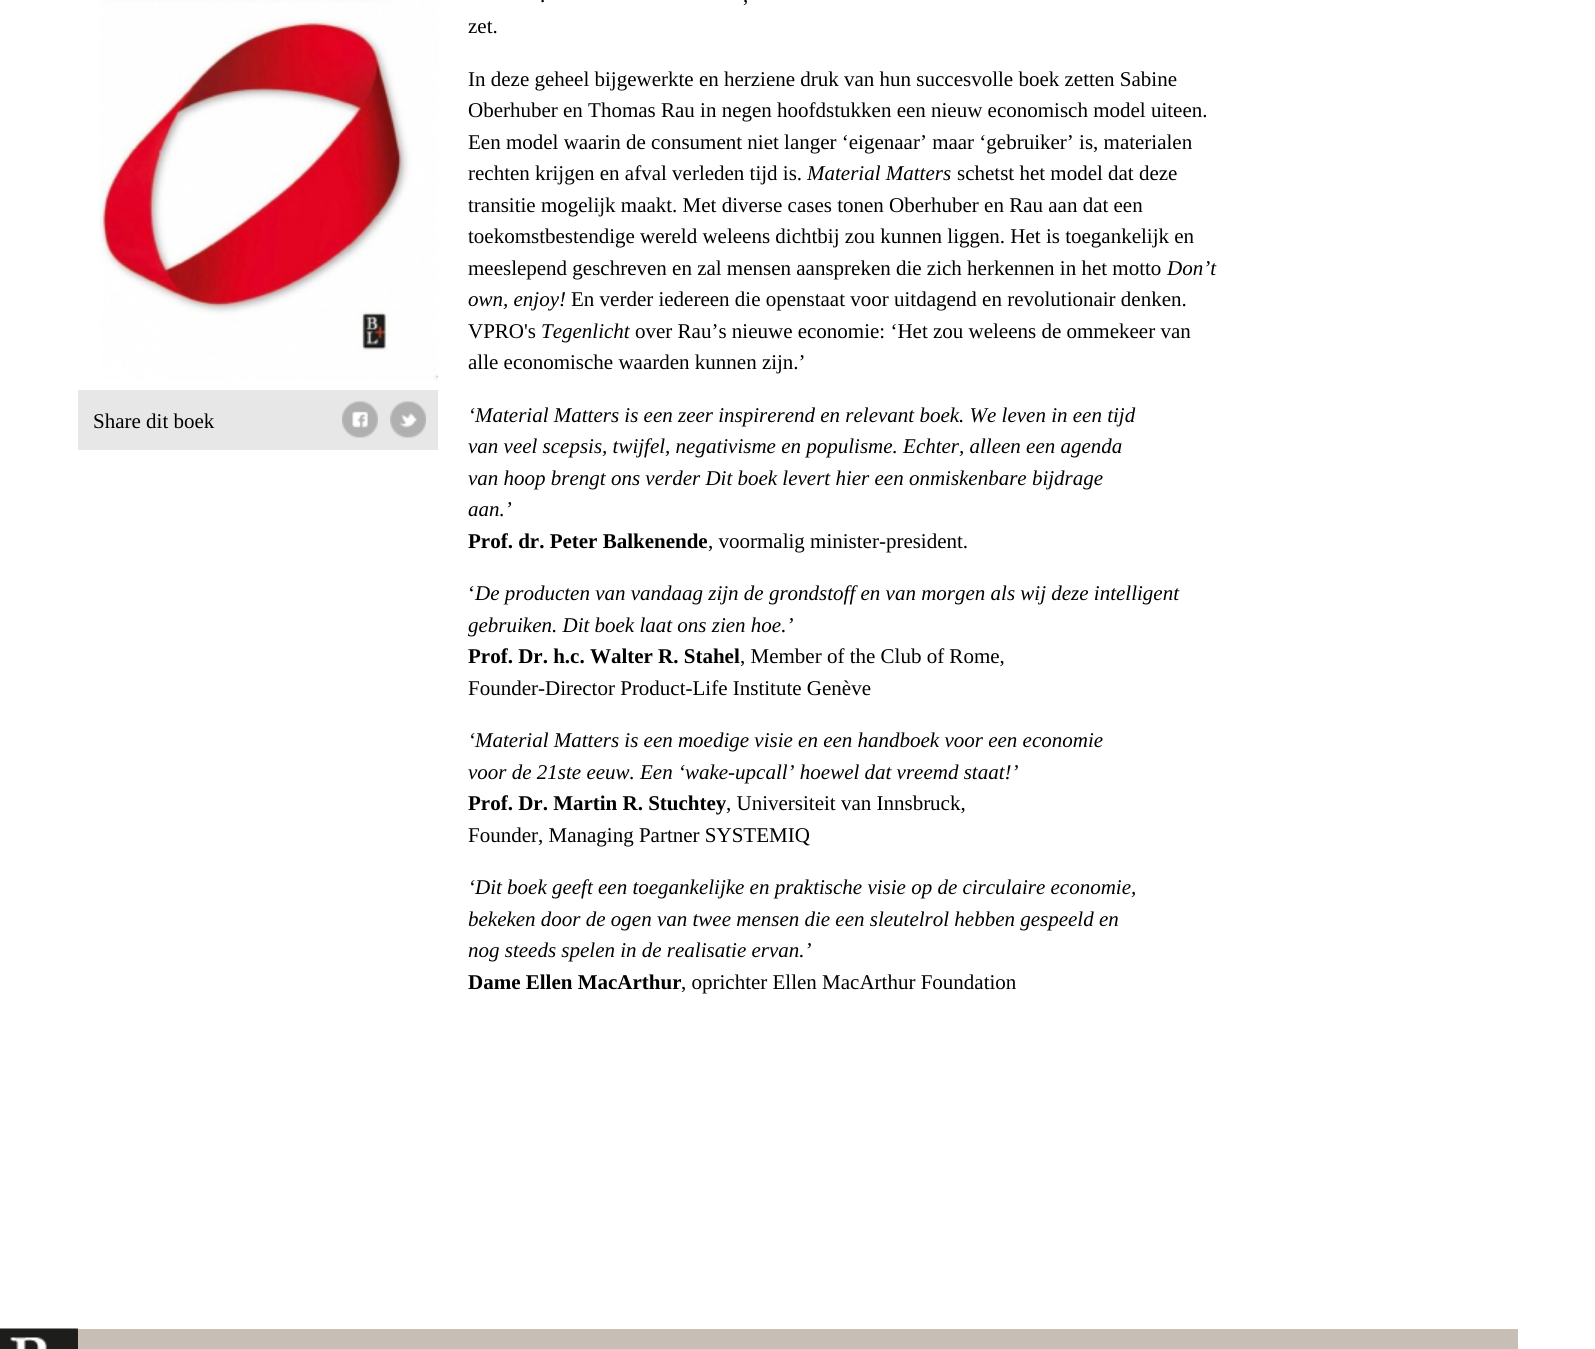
#include <cairo.h>
#include <math.h>
#include <stddef.h>

typedef struct { double x, y; const char *s; } line_t;

static void ink(cairo_t *ctx, unsigned color) {
    cairo_set_source_rgb(ctx, (color >> 16) / 255.0, (color >> 8 & 255) / 255.0, (color & 255) / 255.0);
}

static void paste(cairo_t *ctx, const char *path, double x, double y, double w, double h) {
    cairo_surface_t *image = cairo_image_surface_create_from_png(path);
    cairo_save(ctx);
    cairo_set_source_surface(ctx, image, x, y);
    cairo_rectangle(ctx, x, y, w, h);
    cairo_fill(ctx);
    cairo_restore(ctx);
    cairo_surface_destroy(image);
}

int main(void) {
    cairo_surface_t *surface = cairo_image_surface_create(CAIRO_FORMAT_RGB24, 1595, 1349);
    cairo_t *ctx = cairo_create(surface);
    cairo_font_options_t *options = cairo_font_options_create();
    cairo_font_options_set_hint_metrics(options, CAIRO_HINT_METRICS_OFF);
    cairo_font_options_set_hint_style(options, CAIRO_HINT_STYLE_NONE);
    cairo_set_font_options(ctx, options);
    cairo_set_miter_limit(ctx, 4);
    ink(ctx, 0xFFFFFF);
    cairo_paint(ctx);
    paste(ctx, "media/1.png", 99, 0, 339, 381);
    ink(ctx, 0xE7E7E7);
    cairo_rectangle(ctx, 78, 390, 360, 60);
    cairo_fill(ctx);
    cairo_select_font_face(ctx, "Liberation Serif", CAIRO_FONT_SLANT_NORMAL, CAIRO_FONT_WEIGHT_NORMAL);
    cairo_set_font_size(ctx, 21);
    ink(ctx, 0x000000);
    cairo_move_to(ctx, 93, 428);
    cairo_show_text(ctx, "Share dit boek");
    paste(ctx, "media/2.png", 342, 401, 36, 37);
    paste(ctx, "media/3.png", 390, 401, 36, 37);
    {
        static const line_t items[] = {
            {540, 2, "."},
            {743, 2, ","},
            {468, 33, "zet."},
            {468, 86, "In deze geheel bijgewerkte en herziene druk van hun succesvolle boek zetten Sabine"},
            {468, 117, "Oberhuber en Thomas Rau in negen hoofdstukken een nieuw economisch model uiteen."},
            {468, 149, "Een model waarin de consument niet langer ‘eigenaar’ maar ‘gebruiker’ is, materialen"},
            {468, 180, "rechten krijgen en afval verleden tijd is."},
        };
        for (size_t i = 0; i < sizeof items / sizeof *items; i++) {
            cairo_move_to(ctx, items[i].x, items[i].y);
            cairo_show_text(ctx, items[i].s);
        }
    }
    cairo_select_font_face(ctx, "Liberation Serif", CAIRO_FONT_SLANT_ITALIC, CAIRO_FONT_WEIGHT_NORMAL);
    cairo_move_to(ctx, 807, 180);
    cairo_show_text(ctx, "Material Matters");
    cairo_select_font_face(ctx, "Liberation Serif", CAIRO_FONT_SLANT_NORMAL, CAIRO_FONT_WEIGHT_NORMAL);
    {
        static const line_t items[] = {
            {957, 180, "schetst het model dat deze"},
            {468, 212, "transitie mogelijk maakt. Met diverse cases tonen Oberhuber en Rau aan dat een"},
            {468, 243, "toekomstbestendige wereld weleens dichtbij zou kunnen liggen. Het is toegankelijk en"},
            {468, 275, "meeslepend geschreven en zal mensen aanspreken die zich herkennen in het motto"},
        };
        for (size_t i = 0; i < sizeof items / sizeof *items; i++) {
            cairo_move_to(ctx, items[i].x, items[i].y);
            cairo_show_text(ctx, items[i].s);
        }
    }
    cairo_select_font_face(ctx, "Liberation Serif", CAIRO_FONT_SLANT_ITALIC, CAIRO_FONT_WEIGHT_NORMAL);
    cairo_move_to(ctx, 1167, 275);
    cairo_show_text(ctx, "Don’t");
    cairo_move_to(ctx, 468, 306);
    cairo_show_text(ctx, "own, enjoy!");
    cairo_select_font_face(ctx, "Liberation Serif", CAIRO_FONT_SLANT_NORMAL, CAIRO_FONT_WEIGHT_NORMAL);
    cairo_move_to(ctx, 571, 306);
    cairo_show_text(ctx, "En verder iedereen die openstaat voor uitdagend en revolutionair denken.");
    cairo_move_to(ctx, 468, 338);
    cairo_show_text(ctx, "VPRO's");
    cairo_select_font_face(ctx, "Liberation Serif", CAIRO_FONT_SLANT_ITALIC, CAIRO_FONT_WEIGHT_NORMAL);
    cairo_move_to(ctx, 541, 338);
    cairo_show_text(ctx, "Tegenlicht");
    cairo_select_font_face(ctx, "Liberation Serif", CAIRO_FONT_SLANT_NORMAL, CAIRO_FONT_WEIGHT_NORMAL);
    cairo_move_to(ctx, 635, 338);
    cairo_show_text(ctx, "over Rau’s nieuwe economie: ‘Het zou weleens de ommekeer van");
    cairo_move_to(ctx, 468, 369);
    cairo_show_text(ctx, "alle economische waarden kunnen zijn.’");
    cairo_select_font_face(ctx, "Liberation Serif", CAIRO_FONT_SLANT_ITALIC, CAIRO_FONT_WEIGHT_NORMAL);
    {
        static const line_t items[] = {
            {468, 422, "‘Material Matters is een zeer inspirerend en relevant boek. We leven in een tijd"},
            {468, 453, "van veel scepsis, twijfel, negativisme en populisme. Echter, alleen een agenda"},
            {468, 485, "van hoop brengt ons verder Dit boek levert hier een onmiskenbare bijdrage"},
            {468, 516, "aan.’"},
        };
        for (size_t i = 0; i < sizeof items / sizeof *items; i++) {
            cairo_move_to(ctx, items[i].x, items[i].y);
            cairo_show_text(ctx, items[i].s);
        }
    }
    cairo_select_font_face(ctx, "Liberation Serif", CAIRO_FONT_SLANT_NORMAL, CAIRO_FONT_WEIGHT_BOLD);
    cairo_move_to(ctx, 468, 548);
    cairo_show_text(ctx, "Prof. dr. Peter Balkenende");
    cairo_select_font_face(ctx, "Liberation Serif", CAIRO_FONT_SLANT_NORMAL, CAIRO_FONT_WEIGHT_NORMAL);
    cairo_move_to(ctx, 708, 548);
    cairo_show_text(ctx, ", voormalig minister-president.");
    cairo_move_to(ctx, 468, 600);
    cairo_show_text(ctx, "‘");
    cairo_select_font_face(ctx, "Liberation Serif", CAIRO_FONT_SLANT_ITALIC, CAIRO_FONT_WEIGHT_NORMAL);
    cairo_move_to(ctx, 475, 600);
    cairo_show_text(ctx, "De producten van vandaag zijn de grondstoff en van morgen als wij deze intelligent");
    cairo_move_to(ctx, 468, 632);
    cairo_show_text(ctx, "gebruiken. Dit boek laat ons zien hoe.’");
    cairo_select_font_face(ctx, "Liberation Serif", CAIRO_FONT_SLANT_NORMAL, CAIRO_FONT_WEIGHT_BOLD);
    cairo_move_to(ctx, 468, 663);
    cairo_show_text(ctx, "Prof. Dr. h.c. Walter R. Stahel");
    cairo_select_font_face(ctx, "Liberation Serif", CAIRO_FONT_SLANT_NORMAL, CAIRO_FONT_WEIGHT_NORMAL);
    cairo_move_to(ctx, 740, 663);
    cairo_show_text(ctx, ", Member of the Club of Rome,");
    cairo_move_to(ctx, 468, 695);
    cairo_show_text(ctx, "Founder-Director Product-Life Institute Genève");
    cairo_select_font_face(ctx, "Liberation Serif", CAIRO_FONT_SLANT_ITALIC, CAIRO_FONT_WEIGHT_NORMAL);
    cairo_move_to(ctx, 468, 747);
    cairo_show_text(ctx, "‘Material Matters is een moedige visie en een handboek voor een economie");
    cairo_move_to(ctx, 468, 779);
    cairo_show_text(ctx, "voor de 21ste eeuw. Een ‘wake-upcall’ hoewel dat vreemd staat!’");
    cairo_select_font_face(ctx, "Liberation Serif", CAIRO_FONT_SLANT_NORMAL, CAIRO_FONT_WEIGHT_BOLD);
    cairo_move_to(ctx, 468, 810);
    cairo_show_text(ctx, "Prof. Dr. Martin R. Stuchtey");
    cairo_select_font_face(ctx, "Liberation Serif", CAIRO_FONT_SLANT_NORMAL, CAIRO_FONT_WEIGHT_NORMAL);
    cairo_move_to(ctx, 726, 810);
    cairo_show_text(ctx, ", Universiteit van Innsbruck,");
    cairo_move_to(ctx, 468, 842);
    cairo_show_text(ctx, "Founder, Managing Partner SYSTEMIQ");
    cairo_select_font_face(ctx, "Liberation Serif", CAIRO_FONT_SLANT_ITALIC, CAIRO_FONT_WEIGHT_NORMAL);
    {
        static const line_t items[] = {
            {468, 894, "‘Dit boek geeft een toegankelijke en praktische visie op de circulaire economie,"},
            {468, 926, "bekeken door de ogen van twee mensen die een sleutelrol hebben gespeeld en"},
            {468, 957, "nog steeds spelen in de realisatie ervan.’"},
        };
        for (size_t i = 0; i < sizeof items / sizeof *items; i++) {
            cairo_move_to(ctx, items[i].x, items[i].y);
            cairo_show_text(ctx, items[i].s);
        }
    }
    cairo_select_font_face(ctx, "Liberation Serif", CAIRO_FONT_SLANT_NORMAL, CAIRO_FONT_WEIGHT_BOLD);
    cairo_move_to(ctx, 468, 989);
    cairo_show_text(ctx, "Dame Ellen MacArthur");
    cairo_select_font_face(ctx, "Liberation Serif", CAIRO_FONT_SLANT_NORMAL, CAIRO_FONT_WEIGHT_NORMAL);
    cairo_move_to(ctx, 681, 989);
    cairo_show_text(ctx, ", oprichter Ellen MacArthur Foundation");
    ink(ctx, 0xC7BFB6);
    cairo_rectangle(ctx, 78, 1329, 1440, 20);
    cairo_fill(ctx);
    paste(ctx, "media/4.png", 0, 1328, 78, 21);
    cairo_surface_write_to_png(surface, "image.png");
    cairo_font_options_destroy(options);
    cairo_destroy(ctx);
    cairo_surface_destroy(surface);
    return 0;
}
